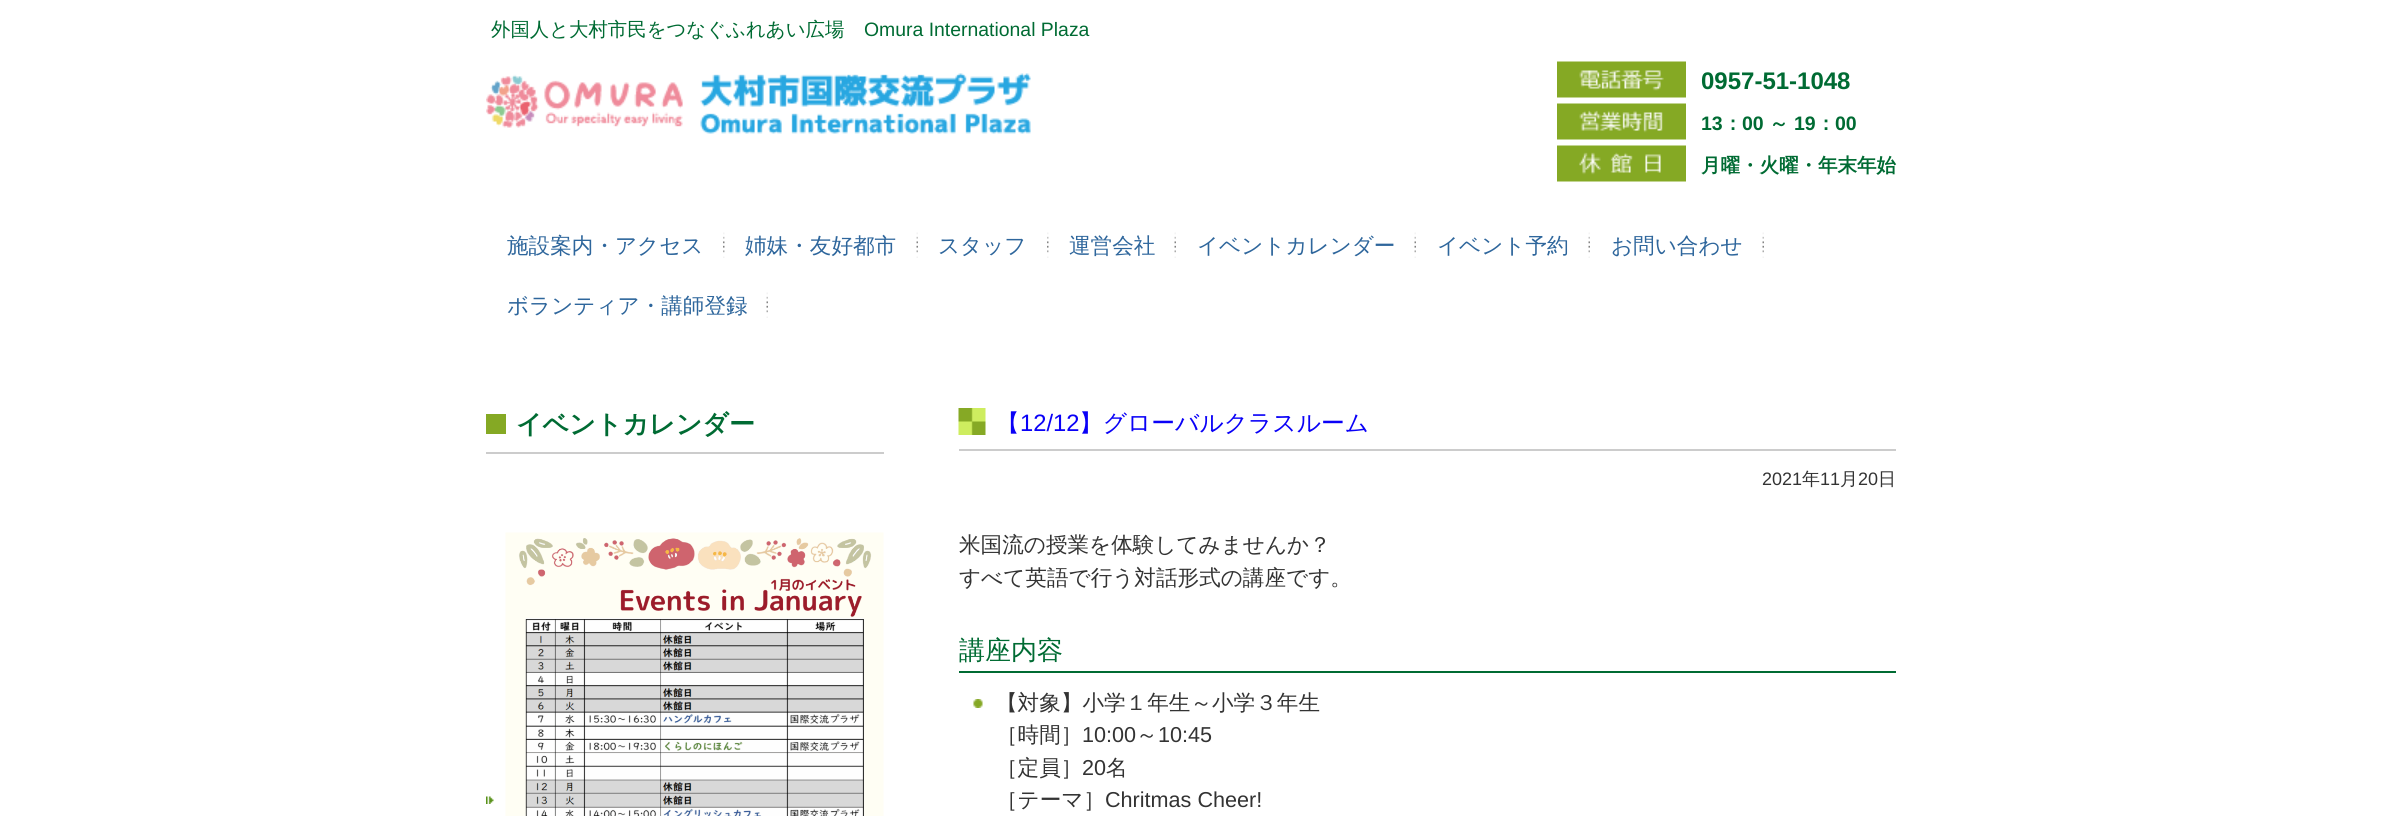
#include <cairo.h>
#include <math.h>
#include <stddef.h>


static void ink(cairo_t *ctx, unsigned color) {
    cairo_set_source_rgb(ctx, (color >> 16) / 255.0, (color >> 8 & 255) / 255.0, (color & 255) / 255.0);
}

static void paste(cairo_t *ctx, const char *path, double x, double y, double w, double h) {
    cairo_surface_t *image = cairo_image_surface_create_from_png(path);
    cairo_save(ctx);
    cairo_set_source_surface(ctx, image, x, y);
    cairo_rectangle(ctx, x, y, w, h);
    cairo_fill(ctx);
    cairo_restore(ctx);
    cairo_surface_destroy(image);
}

int main(void) {
    cairo_surface_t *surface = cairo_image_surface_create(CAIRO_FORMAT_RGB24, 2381, 816);
    cairo_t *ctx = cairo_create(surface);
    cairo_font_options_t *options = cairo_font_options_create();
    cairo_font_options_set_hint_metrics(options, CAIRO_HINT_METRICS_OFF);
    cairo_font_options_set_hint_style(options, CAIRO_HINT_STYLE_NONE);
    cairo_set_font_options(ctx, options);
    cairo_set_miter_limit(ctx, 4);
    ink(ctx, 0xFFFFFF);
    cairo_paint(ctx);
    cairo_select_font_face(ctx, "WenQuanYi Zen Hei Medium", CAIRO_FONT_SLANT_NORMAL, CAIRO_FONT_WEIGHT_NORMAL);
    cairo_set_font_size(ctx, 19.4);
    ink(ctx, 0x006B33);
    cairo_move_to(ctx, 491, 36);
    cairo_show_text(ctx, "外国人と大村市民をつなぐふれあい広場");
    cairo_select_font_face(ctx, "Liberation Sans", CAIRO_FONT_SLANT_NORMAL, CAIRO_FONT_WEIGHT_NORMAL);
    cairo_move_to(ctx, 864, 36);
    cairo_show_text(ctx, "Omura International Plaza");
    paste(ctx, "media/1.png", 486, 73, 545, 61);
    paste(ctx, "media/2.png", 1557, 61, 129, 37);
    cairo_select_font_face(ctx, "Liberation Sans", CAIRO_FONT_SLANT_NORMAL, CAIRO_FONT_WEIGHT_BOLD);
    cairo_set_font_size(ctx, 24);
    cairo_move_to(ctx, 1701, 89);
    cairo_show_text(ctx, "0957-51-1048");
    paste(ctx, "media/3.png", 1557, 103, 129, 37);
    cairo_set_font_size(ctx, 19.5);
    cairo_move_to(ctx, 1701, 130);
    cairo_show_text(ctx, "13");
    cairo_select_font_face(ctx, "WenQuanYi Zen Hei", CAIRO_FONT_SLANT_NORMAL, CAIRO_FONT_WEIGHT_BOLD);
    cairo_move_to(ctx, 1723, 130);
    cairo_show_text(ctx, "：");
    cairo_select_font_face(ctx, "Liberation Sans", CAIRO_FONT_SLANT_NORMAL, CAIRO_FONT_WEIGHT_BOLD);
    cairo_move_to(ctx, 1742, 130);
    cairo_show_text(ctx, "00");
    cairo_select_font_face(ctx, "WenQuanYi Zen Hei", CAIRO_FONT_SLANT_NORMAL, CAIRO_FONT_WEIGHT_BOLD);
    cairo_move_to(ctx, 1769, 130);
    cairo_show_text(ctx, "～");
    cairo_select_font_face(ctx, "Liberation Sans", CAIRO_FONT_SLANT_NORMAL, CAIRO_FONT_WEIGHT_BOLD);
    cairo_move_to(ctx, 1794, 130);
    cairo_show_text(ctx, "19");
    cairo_select_font_face(ctx, "WenQuanYi Zen Hei", CAIRO_FONT_SLANT_NORMAL, CAIRO_FONT_WEIGHT_BOLD);
    cairo_move_to(ctx, 1816, 130);
    cairo_show_text(ctx, "：");
    cairo_select_font_face(ctx, "Liberation Sans", CAIRO_FONT_SLANT_NORMAL, CAIRO_FONT_WEIGHT_BOLD);
    cairo_move_to(ctx, 1835, 130);
    cairo_show_text(ctx, "00");
    paste(ctx, "media/4.png", 1557, 145, 129, 37);
    cairo_select_font_face(ctx, "WenQuanYi Zen Hei", CAIRO_FONT_SLANT_NORMAL, CAIRO_FONT_WEIGHT_BOLD);
    cairo_move_to(ctx, 1701, 172);
    cairo_show_text(ctx, "月曜・火曜・年末年始");
    paste(ctx, "media/5.png", 723, 232, 2, 26);
    cairo_select_font_face(ctx, "WenQuanYi Zen Hei Medium", CAIRO_FONT_SLANT_NORMAL, CAIRO_FONT_WEIGHT_NORMAL);
    cairo_set_font_size(ctx, 21.6);
    ink(ctx, 0x2E669C);
    cairo_move_to(ctx, 507, 253);
    cairo_show_text(ctx, "施設案内・アクセス");
    paste(ctx, "media/6.png", 916, 232, 2, 26);
    cairo_move_to(ctx, 745, 253);
    cairo_show_text(ctx, "姉妹・友好都市");
    paste(ctx, "media/5.png", 1047, 232, 2, 26);
    cairo_move_to(ctx, 938, 253);
    cairo_show_text(ctx, "スタッフ");
    paste(ctx, "media/6.png", 1174, 232, 2, 26);
    cairo_move_to(ctx, 1069, 253);
    cairo_show_text(ctx, "運営会社");
    paste(ctx, "media/6.png", 1414, 232, 2, 26);
    cairo_move_to(ctx, 1197, 253);
    cairo_show_text(ctx, "イベントカレンダー");
    paste(ctx, "media/6.png", 1588, 232, 2, 26);
    cairo_move_to(ctx, 1437, 253);
    cairo_show_text(ctx, "イベント予約");
    paste(ctx, "media/6.png", 1762, 232, 2, 26);
    cairo_move_to(ctx, 1611, 253);
    cairo_show_text(ctx, "お問い合わせ");
    paste(ctx, "media/6.png", 766, 292, 2, 26);
    cairo_move_to(ctx, 507, 313);
    cairo_show_text(ctx, "ボランティア・講師登録");
    ink(ctx, 0x85A924);
    cairo_rectangle(ctx, 486, 414, 20, 20);
    cairo_fill(ctx);
    ink(ctx, 0xCCCCCC);
    cairo_rectangle(ctx, 486, 452, 398, 2);
    cairo_fill(ctx);
    cairo_select_font_face(ctx, "WenQuanYi Zen Hei", CAIRO_FONT_SLANT_NORMAL, CAIRO_FONT_WEIGHT_BOLD);
    cairo_set_font_size(ctx, 26);
    ink(ctx, 0x006B33);
    cairo_move_to(ctx, 516, 433);
    cairo_show_text(ctx, "イベントカレンダー");
    paste(ctx, "media/7.png", 486, 796, 8, 8);
    paste(ctx, "media/8.png", 505, 532, 379, 284);
    paste(ctx, "media/9.png", 958, 408, 28, 27);
    ink(ctx, 0xCCCCCC);
    cairo_rectangle(ctx, 959, 449, 937, 2);
    cairo_fill(ctx);
    cairo_select_font_face(ctx, "WenQuanYi Zen Hei Medium", CAIRO_FONT_SLANT_NORMAL, CAIRO_FONT_WEIGHT_NORMAL);
    cairo_set_font_size(ctx, 23.75);
    ink(ctx, 0x0A01F7);
    cairo_move_to(ctx, 996, 431);
    cairo_show_text(ctx, "【");
    cairo_select_font_face(ctx, "Liberation Sans", CAIRO_FONT_SLANT_NORMAL, CAIRO_FONT_WEIGHT_NORMAL);
    cairo_move_to(ctx, 1020, 431);
    cairo_show_text(ctx, "12/12");
    cairo_select_font_face(ctx, "WenQuanYi Zen Hei Medium", CAIRO_FONT_SLANT_NORMAL, CAIRO_FONT_WEIGHT_NORMAL);
    cairo_move_to(ctx, 1079, 431);
    cairo_show_text(ctx, "】グローバルクラスルーム");
    cairo_select_font_face(ctx, "Liberation Sans", CAIRO_FONT_SLANT_NORMAL, CAIRO_FONT_WEIGHT_NORMAL);
    cairo_set_font_size(ctx, 18);
    ink(ctx, 0x333333);
    cairo_move_to(ctx, 1762, 485);
    cairo_show_text(ctx, "2021");
    cairo_select_font_face(ctx, "WenQuanYi Zen Hei Medium", CAIRO_FONT_SLANT_NORMAL, CAIRO_FONT_WEIGHT_NORMAL);
    cairo_move_to(ctx, 1802, 485);
    cairo_show_text(ctx, "年");
    cairo_select_font_face(ctx, "Liberation Sans", CAIRO_FONT_SLANT_NORMAL, CAIRO_FONT_WEIGHT_NORMAL);
    cairo_move_to(ctx, 1820, 485);
    cairo_show_text(ctx, "11");
    cairo_select_font_face(ctx, "WenQuanYi Zen Hei Medium", CAIRO_FONT_SLANT_NORMAL, CAIRO_FONT_WEIGHT_NORMAL);
    cairo_move_to(ctx, 1840, 485);
    cairo_show_text(ctx, "月");
    cairo_select_font_face(ctx, "Liberation Sans", CAIRO_FONT_SLANT_NORMAL, CAIRO_FONT_WEIGHT_NORMAL);
    cairo_move_to(ctx, 1858, 485);
    cairo_show_text(ctx, "20");
    cairo_select_font_face(ctx, "WenQuanYi Zen Hei Medium", CAIRO_FONT_SLANT_NORMAL, CAIRO_FONT_WEIGHT_NORMAL);
    cairo_move_to(ctx, 1878, 485);
    cairo_show_text(ctx, "日");
    cairo_set_font_size(ctx, 21.6);
    cairo_move_to(ctx, 959, 552);
    cairo_show_text(ctx, "米国流の授業を体験してみませんか？");
    cairo_move_to(ctx, 959, 585);
    cairo_show_text(ctx, "すべて英語で行う対話形式の講座です。");
    ink(ctx, 0x006B33);
    cairo_rectangle(ctx, 959, 671, 937, 2);
    cairo_fill(ctx);
    cairo_set_font_size(ctx, 26);
    cairo_move_to(ctx, 959, 659);
    cairo_show_text(ctx, "講座内容");
    paste(ctx, "media/10.png", 973, 699, 10, 9);
    cairo_set_font_size(ctx, 21.6);
    ink(ctx, 0x333333);
    cairo_move_to(ctx, 996, 710);
    cairo_show_text(ctx, "【対象】小学１年生～小学３年生");
    cairo_move_to(ctx, 996, 742);
    cairo_show_text(ctx, "［時間］");
    cairo_select_font_face(ctx, "Liberation Sans", CAIRO_FONT_SLANT_NORMAL, CAIRO_FONT_WEIGHT_NORMAL);
    cairo_move_to(ctx, 1082, 742);
    cairo_show_text(ctx, "10:00");
    cairo_select_font_face(ctx, "WenQuanYi Zen Hei Medium", CAIRO_FONT_SLANT_NORMAL, CAIRO_FONT_WEIGHT_NORMAL);
    cairo_move_to(ctx, 1136, 742);
    cairo_show_text(ctx, "～");
    cairo_select_font_face(ctx, "Liberation Sans", CAIRO_FONT_SLANT_NORMAL, CAIRO_FONT_WEIGHT_NORMAL);
    cairo_move_to(ctx, 1158, 742);
    cairo_show_text(ctx, "10:45");
    cairo_select_font_face(ctx, "WenQuanYi Zen Hei Medium", CAIRO_FONT_SLANT_NORMAL, CAIRO_FONT_WEIGHT_NORMAL);
    cairo_move_to(ctx, 996, 775);
    cairo_show_text(ctx, "［定員］");
    cairo_select_font_face(ctx, "Liberation Sans", CAIRO_FONT_SLANT_NORMAL, CAIRO_FONT_WEIGHT_NORMAL);
    cairo_move_to(ctx, 1082, 775);
    cairo_show_text(ctx, "20");
    cairo_select_font_face(ctx, "WenQuanYi Zen Hei Medium", CAIRO_FONT_SLANT_NORMAL, CAIRO_FONT_WEIGHT_NORMAL);
    cairo_move_to(ctx, 1106, 775);
    cairo_show_text(ctx, "名");
    cairo_move_to(ctx, 996, 807);
    cairo_show_text(ctx, "［テーマ］");
    cairo_select_font_face(ctx, "Liberation Sans", CAIRO_FONT_SLANT_NORMAL, CAIRO_FONT_WEIGHT_NORMAL);
    cairo_move_to(ctx, 1105, 807);
    cairo_show_text(ctx, "Chritmas Cheer!");
    cairo_surface_write_to_png(surface, "image.png");
    cairo_font_options_destroy(options);
    cairo_destroy(ctx);
    cairo_surface_destroy(surface);
    return 0;
}
